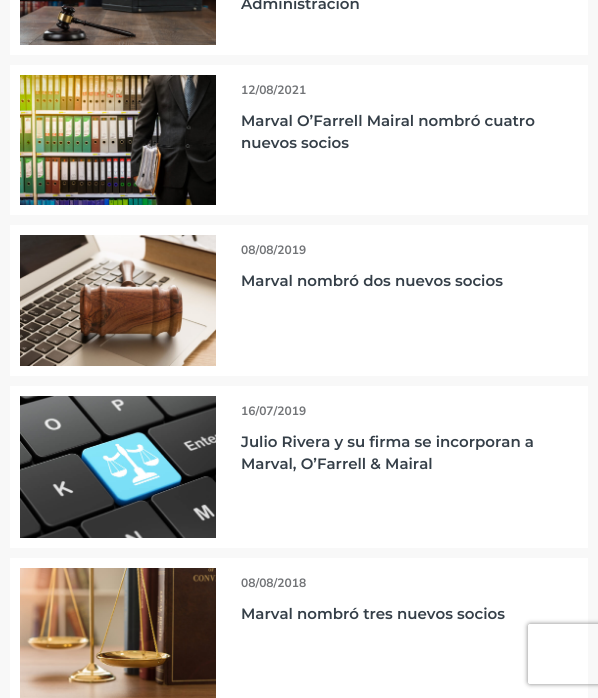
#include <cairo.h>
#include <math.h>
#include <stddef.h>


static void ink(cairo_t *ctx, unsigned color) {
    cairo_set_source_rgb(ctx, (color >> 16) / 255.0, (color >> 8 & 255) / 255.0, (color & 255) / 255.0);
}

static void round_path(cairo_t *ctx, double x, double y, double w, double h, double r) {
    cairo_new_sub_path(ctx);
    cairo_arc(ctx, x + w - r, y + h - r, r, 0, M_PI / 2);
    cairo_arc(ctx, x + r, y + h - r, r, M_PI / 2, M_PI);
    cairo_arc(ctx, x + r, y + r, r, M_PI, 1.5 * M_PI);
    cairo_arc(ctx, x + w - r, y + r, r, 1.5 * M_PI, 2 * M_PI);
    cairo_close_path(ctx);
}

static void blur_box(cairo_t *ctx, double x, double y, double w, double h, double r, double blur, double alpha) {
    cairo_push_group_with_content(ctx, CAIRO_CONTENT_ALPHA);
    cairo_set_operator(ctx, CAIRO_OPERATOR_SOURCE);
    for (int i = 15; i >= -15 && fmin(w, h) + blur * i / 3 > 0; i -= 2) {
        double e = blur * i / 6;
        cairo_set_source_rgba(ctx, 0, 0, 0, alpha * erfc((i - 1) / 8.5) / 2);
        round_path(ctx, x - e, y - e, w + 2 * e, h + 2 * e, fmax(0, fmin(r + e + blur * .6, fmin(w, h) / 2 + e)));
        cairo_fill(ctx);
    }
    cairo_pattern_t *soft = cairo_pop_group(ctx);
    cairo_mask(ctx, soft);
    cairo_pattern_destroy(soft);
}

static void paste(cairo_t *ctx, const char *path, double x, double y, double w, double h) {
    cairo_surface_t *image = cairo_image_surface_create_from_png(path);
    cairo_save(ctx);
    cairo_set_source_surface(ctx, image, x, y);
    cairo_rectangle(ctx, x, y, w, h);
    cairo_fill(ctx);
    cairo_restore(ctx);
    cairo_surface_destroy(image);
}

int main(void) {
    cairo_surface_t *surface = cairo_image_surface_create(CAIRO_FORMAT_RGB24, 598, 698);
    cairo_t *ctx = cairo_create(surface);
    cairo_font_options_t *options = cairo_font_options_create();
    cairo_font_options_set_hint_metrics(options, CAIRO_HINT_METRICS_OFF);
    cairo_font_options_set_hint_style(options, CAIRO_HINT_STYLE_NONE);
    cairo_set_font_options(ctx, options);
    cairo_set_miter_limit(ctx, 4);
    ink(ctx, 0xF8F8F8);
    cairo_paint(ctx);
    ink(ctx, 0xFFFFFF);
    cairo_rectangle(ctx, 10, 0, 578, 55);
    cairo_fill(ctx);
    paste(ctx, "media/1.png", 20, 0, 196, 45);
    cairo_select_font_face(ctx, "Montserrat SemiBold", CAIRO_FONT_SLANT_NORMAL, CAIRO_FONT_WEIGHT_NORMAL);
    cairo_set_font_size(ctx, 15);
    ink(ctx, 0x353F48);
    cairo_move_to(ctx, 241, 9);
    cairo_show_text(ctx, "Administración");
    ink(ctx, 0xFFFFFF);
    cairo_rectangle(ctx, 10, 65, 578, 150);
    cairo_fill(ctx);
    paste(ctx, "media/2.png", 20, 75, 196, 130);
    cairo_select_font_face(ctx, "Nunito Sans", CAIRO_FONT_SLANT_NORMAL, CAIRO_FONT_WEIGHT_BOLD);
    cairo_set_font_size(ctx, 12);
    ink(ctx, 0x727477);
    cairo_move_to(ctx, 241, 94);
    cairo_show_text(ctx, "12/08/2021");
    cairo_select_font_face(ctx, "Montserrat SemiBold", CAIRO_FONT_SLANT_NORMAL, CAIRO_FONT_WEIGHT_NORMAL);
    cairo_set_font_size(ctx, 15);
    ink(ctx, 0x353F48);
    cairo_move_to(ctx, 241, 126);
    cairo_show_text(ctx, "Marval O’Farrell Mairal nombró cuatro");
    cairo_move_to(ctx, 241, 148);
    cairo_show_text(ctx, "nuevos socios");
    ink(ctx, 0xFFFFFF);
    cairo_rectangle(ctx, 10, 225, 578, 151);
    cairo_fill(ctx);
    paste(ctx, "media/3.png", 20, 235, 196, 131);
    cairo_select_font_face(ctx, "Nunito Sans", CAIRO_FONT_SLANT_NORMAL, CAIRO_FONT_WEIGHT_BOLD);
    cairo_set_font_size(ctx, 12);
    ink(ctx, 0x727477);
    cairo_move_to(ctx, 241, 254);
    cairo_show_text(ctx, "08/08/2019");
    cairo_select_font_face(ctx, "Montserrat SemiBold", CAIRO_FONT_SLANT_NORMAL, CAIRO_FONT_WEIGHT_NORMAL);
    cairo_set_font_size(ctx, 15);
    ink(ctx, 0x353F48);
    cairo_move_to(ctx, 241, 286);
    cairo_show_text(ctx, "Marval nombró dos nuevos socios");
    ink(ctx, 0xFFFFFF);
    cairo_rectangle(ctx, 10, 386, 578, 162);
    cairo_fill(ctx);
    paste(ctx, "media/4.png", 20, 396, 196, 142);
    cairo_select_font_face(ctx, "Nunito Sans", CAIRO_FONT_SLANT_NORMAL, CAIRO_FONT_WEIGHT_BOLD);
    cairo_set_font_size(ctx, 12);
    ink(ctx, 0x727477);
    cairo_move_to(ctx, 241, 415);
    cairo_show_text(ctx, "16/07/2019");
    cairo_select_font_face(ctx, "Montserrat SemiBold", CAIRO_FONT_SLANT_NORMAL, CAIRO_FONT_WEIGHT_NORMAL);
    cairo_set_font_size(ctx, 15);
    ink(ctx, 0x353F48);
    cairo_move_to(ctx, 241, 447);
    cairo_show_text(ctx, "Julio Rivera y su firma se incorporan a");
    cairo_move_to(ctx, 241, 469);
    cairo_show_text(ctx, "Marval, O’Farrell & Mairal");
    ink(ctx, 0xFFFFFF);
    cairo_rectangle(ctx, 10, 558, 578, 140);
    cairo_fill(ctx);
    paste(ctx, "media/5.png", 20, 568, 196, 130);
    cairo_select_font_face(ctx, "Nunito Sans", CAIRO_FONT_SLANT_NORMAL, CAIRO_FONT_WEIGHT_BOLD);
    cairo_set_font_size(ctx, 12);
    ink(ctx, 0x727477);
    cairo_move_to(ctx, 241, 587);
    cairo_show_text(ctx, "08/08/2018");
    cairo_select_font_face(ctx, "Montserrat SemiBold", CAIRO_FONT_SLANT_NORMAL, CAIRO_FONT_WEIGHT_NORMAL);
    cairo_set_font_size(ctx, 15);
    ink(ctx, 0x353F48);
    cairo_move_to(ctx, 241, 619);
    cairo_show_text(ctx, "Marval nombró tres nuevos socios");
    cairo_save(ctx);
    cairo_set_fill_rule(ctx, CAIRO_FILL_RULE_EVEN_ODD);
    cairo_new_path(ctx);
    cairo_move_to(ctx, 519, 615);
    cairo_line_to(ctx, 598, 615);
    cairo_line_to(ctx, 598, 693);
    cairo_line_to(ctx, 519, 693);
    cairo_close_path(ctx);
    cairo_move_to(ctx, 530, 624);
    cairo_line_to(ctx, 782, 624);
    cairo_curve_to(ctx, 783, 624, 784, 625, 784, 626);
    cairo_line_to(ctx, 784, 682);
    cairo_curve_to(ctx, 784, 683, 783, 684, 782, 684);
    cairo_line_to(ctx, 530, 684);
    cairo_curve_to(ctx, 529, 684, 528, 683, 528, 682);
    cairo_line_to(ctx, 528, 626);
    cairo_curve_to(ctx, 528, 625, 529, 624, 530, 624);
    cairo_close_path(ctx);
    cairo_clip(ctx);
    ink(ctx, 0x808080);
    blur_box(ctx, 528, 624, 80, 60, 2, 2.5, 1);
    cairo_restore(ctx);
    cairo_surface_write_to_png(surface, "image.png");
    cairo_font_options_destroy(options);
    cairo_destroy(ctx);
    cairo_surface_destroy(surface);
    return 0;
}
